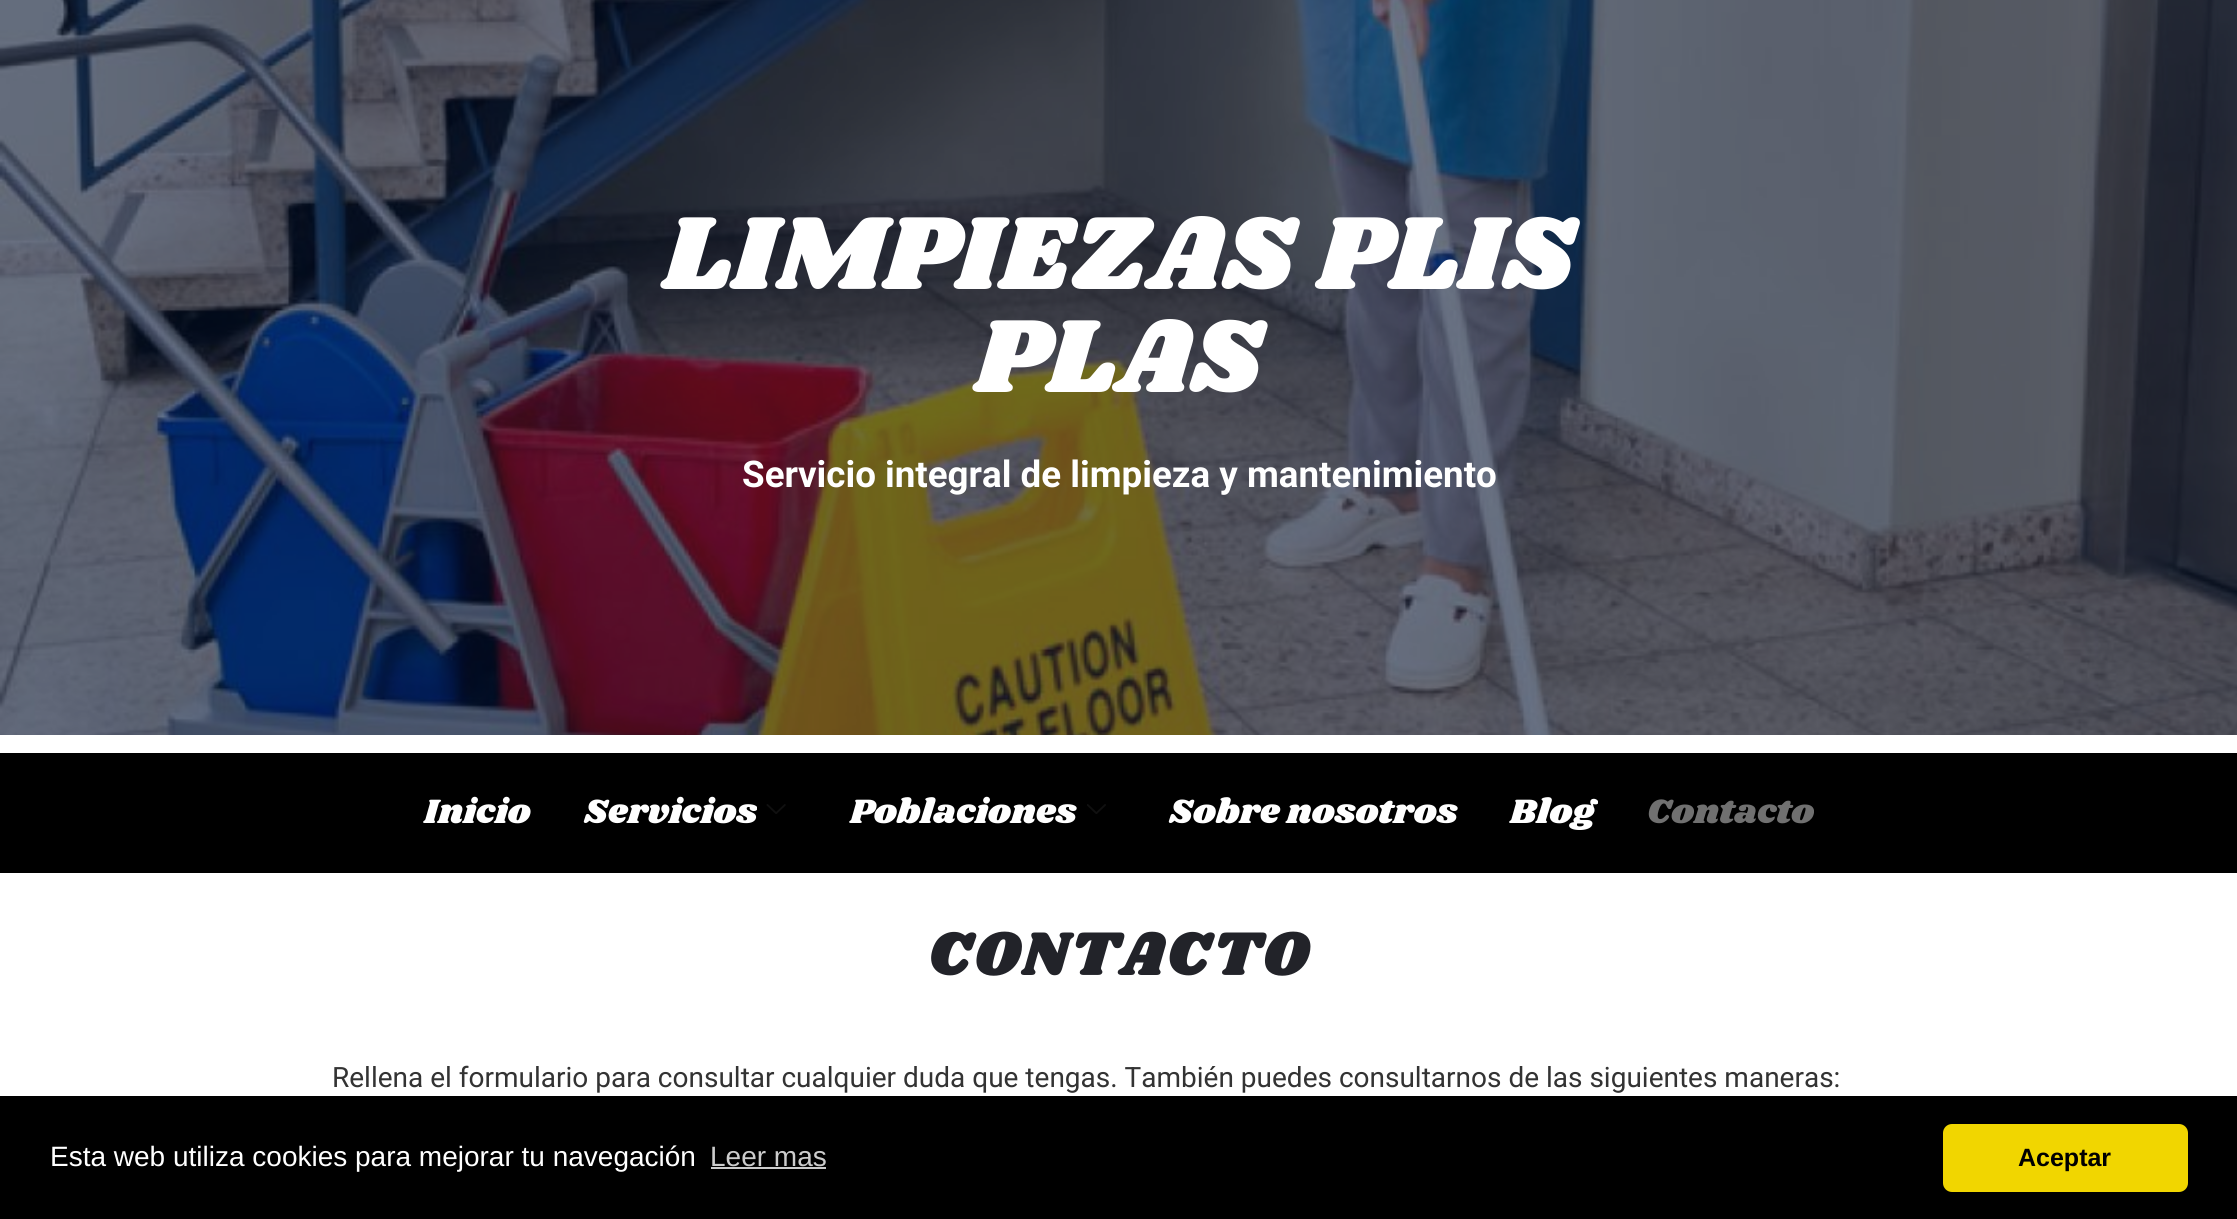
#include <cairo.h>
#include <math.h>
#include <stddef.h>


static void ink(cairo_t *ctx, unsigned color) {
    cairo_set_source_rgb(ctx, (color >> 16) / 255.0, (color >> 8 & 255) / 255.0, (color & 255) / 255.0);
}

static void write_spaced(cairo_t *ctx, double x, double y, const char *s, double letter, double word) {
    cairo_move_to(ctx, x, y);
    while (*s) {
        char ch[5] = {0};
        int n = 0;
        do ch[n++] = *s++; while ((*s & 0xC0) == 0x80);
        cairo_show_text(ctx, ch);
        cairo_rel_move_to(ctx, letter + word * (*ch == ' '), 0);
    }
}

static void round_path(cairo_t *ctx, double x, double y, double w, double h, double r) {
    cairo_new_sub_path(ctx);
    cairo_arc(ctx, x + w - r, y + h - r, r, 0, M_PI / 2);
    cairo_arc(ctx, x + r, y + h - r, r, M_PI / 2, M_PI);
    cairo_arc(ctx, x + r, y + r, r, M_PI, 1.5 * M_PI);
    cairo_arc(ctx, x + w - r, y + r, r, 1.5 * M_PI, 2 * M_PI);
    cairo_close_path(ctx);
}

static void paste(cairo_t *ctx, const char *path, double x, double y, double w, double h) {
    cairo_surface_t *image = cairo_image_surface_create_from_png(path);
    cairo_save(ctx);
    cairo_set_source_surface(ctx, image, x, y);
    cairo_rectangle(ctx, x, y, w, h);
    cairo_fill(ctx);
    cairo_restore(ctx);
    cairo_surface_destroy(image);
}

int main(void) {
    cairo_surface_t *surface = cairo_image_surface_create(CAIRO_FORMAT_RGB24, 2237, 1219);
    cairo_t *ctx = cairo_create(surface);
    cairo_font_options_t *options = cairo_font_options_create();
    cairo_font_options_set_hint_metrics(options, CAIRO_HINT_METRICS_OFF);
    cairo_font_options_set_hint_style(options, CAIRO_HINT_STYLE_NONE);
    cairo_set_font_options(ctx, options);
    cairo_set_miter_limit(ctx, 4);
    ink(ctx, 0xFFFFFF);
    cairo_paint(ctx);
    paste(ctx, "media/1.png", 0, 0, 2237, 735);
    cairo_select_font_face(ctx, "Shrikhand", CAIRO_FONT_SLANT_NORMAL, CAIRO_FONT_WEIGHT_BOLD);
    cairo_set_font_size(ctx, 103.25);
    ink(ctx, 0xFFFFFF);
    write_spaced(ctx, 663, 289, "LIMPIEZAS PLIS", 1.75, 0);
    write_spaced(ctx, 975, 392, "PLAS", 1.75, 0);
    cairo_select_font_face(ctx, "Roboto", CAIRO_FONT_SLANT_NORMAL, CAIRO_FONT_WEIGHT_BOLD);
    cairo_set_font_size(ctx, 36.75);
    cairo_move_to(ctx, 742, 487);
    cairo_show_text(ctx, "Servicio integral de limpieza y mantenimiento");
    ink(ctx, 0x000000);
    cairo_rectangle(ctx, 0, 753, 2237, 120);
    cairo_fill(ctx);
    cairo_select_font_face(ctx, "Shrikhand", CAIRO_FONT_SLANT_NORMAL, CAIRO_FONT_WEIGHT_NORMAL);
    cairo_set_font_size(ctx, 35);
    ink(ctx, 0xFFFFFF);
    cairo_move_to(ctx, 424, 823);
    cairo_show_text(ctx, "Inicio");
    cairo_move_to(ctx, 584, 823);
    cairo_show_text(ctx, "Servicios");
    paste(ctx, "media/2.png", 766, 804, 20, 10);
    cairo_move_to(ctx, 850, 823);
    cairo_show_text(ctx, "Poblaciones");
    paste(ctx, "media/3.png", 1087, 804, 19, 10);
    cairo_move_to(ctx, 1169, 823);
    cairo_show_text(ctx, "Sobre nosotros");
    cairo_move_to(ctx, 1510, 823);
    cairo_show_text(ctx, "Blog");
    ink(ctx, 0x707070);
    cairo_move_to(ctx, 1647, 823);
    cairo_show_text(ctx, "Contacto");
    cairo_select_font_face(ctx, "Shrikhand", CAIRO_FONT_SLANT_NORMAL, CAIRO_FONT_WEIGHT_BOLD);
    cairo_set_font_size(ctx, 61.25);
    ink(ctx, 0x222329);
    write_spaced(ctx, 928, 975, "CONTACTO", 3.5, 0);
    cairo_select_font_face(ctx, "Roboto", CAIRO_FONT_SLANT_NORMAL, CAIRO_FONT_WEIGHT_NORMAL);
    cairo_set_font_size(ctx, 28);
    ink(ctx, 0x333333);
    cairo_move_to(ctx, 332, 1087);
    cairo_show_text(ctx, "Rellena el formulario para consultar cualquier duda que tengas. También puedes consultarnos de las siguientes maneras:");
    ink(ctx, 0x000000);
    cairo_rectangle(ctx, 0, 1096, 2237, 123);
    cairo_fill(ctx);
    cairo_select_font_face(ctx, "Liberation Sans", CAIRO_FONT_SLANT_NORMAL, CAIRO_FONT_WEIGHT_NORMAL);
    ink(ctx, 0xFFFFFF);
    cairo_move_to(ctx, 50, 1166);
    cairo_show_text(ctx, "Esta web utiliza cookies para mejorar tu navegación");
    ink(ctx, 0xCCCCCC);
    cairo_move_to(ctx, 710, 1166);
    cairo_show_text(ctx, "Leer mas");
    cairo_rectangle(ctx, 711, 1167, 115, 2);
    cairo_fill(ctx);
    ink(ctx, 0xF1D600);
    round_path(ctx, 1943, 1124, 245, 68, 9);
    cairo_fill(ctx);
    cairo_select_font_face(ctx, "Liberation Sans", CAIRO_FONT_SLANT_NORMAL, CAIRO_FONT_WEIGHT_BOLD);
    cairo_set_font_size(ctx, 25);
    ink(ctx, 0x000000);
    cairo_move_to(ctx, 2018, 1166);
    cairo_show_text(ctx, "Aceptar");
    cairo_surface_write_to_png(surface, "image.png");
    cairo_font_options_destroy(options);
    cairo_destroy(ctx);
    cairo_surface_destroy(surface);
    return 0;
}
